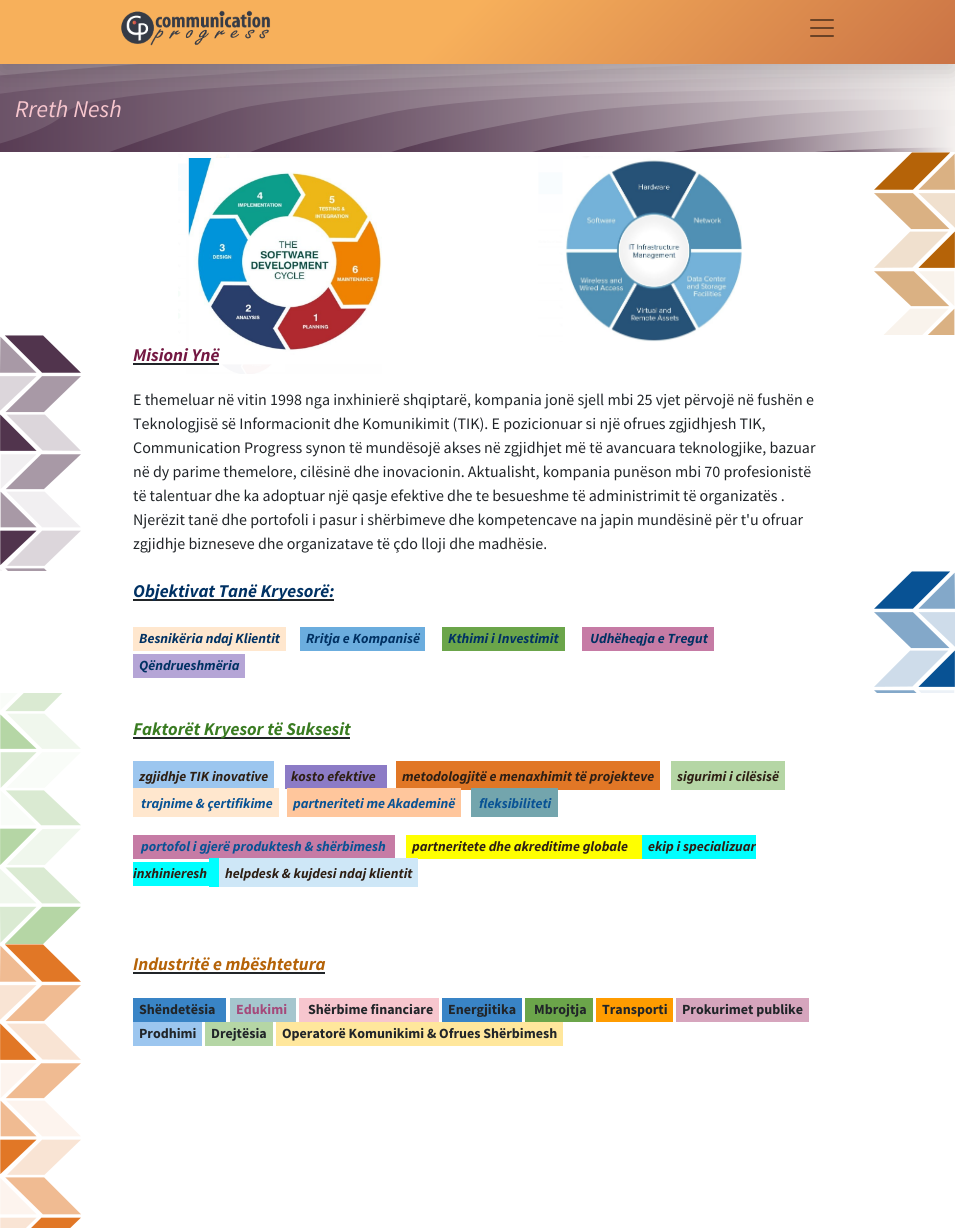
#include <cairo.h>
#include <math.h>
#include <stddef.h>

typedef struct { double x, y; const char *s; } line_t;

static void ink(cairo_t *ctx, unsigned color) {
    cairo_set_source_rgb(ctx, (color >> 16) / 255.0, (color >> 8 & 255) / 255.0, (color & 255) / 255.0);
}

static void round_path(cairo_t *ctx, double x, double y, double w, double h, double r) {
    cairo_new_sub_path(ctx);
    cairo_arc(ctx, x + w - r, y + h - r, r, 0, M_PI / 2);
    cairo_arc(ctx, x + r, y + h - r, r, M_PI / 2, M_PI);
    cairo_arc(ctx, x + r, y + r, r, M_PI, 1.5 * M_PI);
    cairo_arc(ctx, x + w - r, y + r, r, 1.5 * M_PI, 2 * M_PI);
    cairo_close_path(ctx);
}

static void blur_box(cairo_t *ctx, double x, double y, double w, double h, double r, double blur, double alpha) {
    cairo_push_group_with_content(ctx, CAIRO_CONTENT_ALPHA);
    cairo_set_operator(ctx, CAIRO_OPERATOR_SOURCE);
    for (int i = 15; i >= -15 && fmin(w, h) + blur * i / 3 > 0; i -= 2) {
        double e = blur * i / 6;
        cairo_set_source_rgba(ctx, 0, 0, 0, alpha * erfc((i - 1) / 8.5) / 2);
        round_path(ctx, x - e, y - e, w + 2 * e, h + 2 * e, fmax(0, fmin(r + e + blur * .6, fmin(w, h) / 2 + e)));
        cairo_fill(ctx);
    }
    cairo_pattern_t *soft = cairo_pop_group(ctx);
    cairo_mask(ctx, soft);
    cairo_pattern_destroy(soft);
}

static void paste(cairo_t *ctx, const char *path, double x, double y, double w, double h) {
    cairo_surface_t *image = cairo_image_surface_create_from_png(path);
    cairo_save(ctx);
    cairo_set_source_surface(ctx, image, x, y);
    cairo_rectangle(ctx, x, y, w, h);
    cairo_fill(ctx);
    cairo_restore(ctx);
    cairo_surface_destroy(image);
}

int main(void) {
    cairo_surface_t *surface = cairo_image_surface_create(CAIRO_FORMAT_RGB24, 955, 1230);
    cairo_t *ctx = cairo_create(surface);
    cairo_font_options_t *options = cairo_font_options_create();
    cairo_font_options_set_hint_metrics(options, CAIRO_HINT_METRICS_OFF);
    cairo_font_options_set_hint_style(options, CAIRO_HINT_STYLE_NONE);
    cairo_set_font_options(ctx, options);
    cairo_set_miter_limit(ctx, 4);
    cairo_pattern_t *gradient;
    ink(ctx, 0xFFFFFF);
    cairo_paint(ctx);
    paste(ctx, "media/3.png", 0, 64, 955, 88);
    ink(ctx, 0x000000);
    blur_box(ctx, 0, 8, 955, 64, 0, 13, 0.15);
    gradient = cairo_pattern_create_linear(223, -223, 732, 287);
    cairo_pattern_add_color_stop_rgba(gradient, 0.47, 0.969, 0.69, 0.357, 1);
    cairo_pattern_add_color_stop_rgba(gradient, 1, 0.792, 0.451, 0.271, 1);
    cairo_set_source(ctx, gradient);
    cairo_pattern_destroy(gradient);
    cairo_rectangle(ctx, 0, 0, 955, 64);
    cairo_fill(ctx);
    paste(ctx, "media/1.png", 121, 10, 150, 36);
    paste(ctx, "media/2.png", 810, 19, 24, 18);
    cairo_select_font_face(ctx, "Source Sans Pro", CAIRO_FONT_SLANT_ITALIC, CAIRO_FONT_WEIGHT_NORMAL);
    cairo_set_font_size(ctx, 24);
    ink(ctx, 0xF7C6CE);
    cairo_move_to(ctx, 15, 117);
    cairo_show_text(ctx, "Rreth Nesh");
    paste(ctx, "media/4.png", 178, 154, 204, 220);
    paste(ctx, "media/5.png", 538, 156, 204, 186);
    paste(ctx, "media/6.png", 874, 152, 81, 183);
    paste(ctx, "media/7.png", 0, 335, 81, 236);
    cairo_select_font_face(ctx, "Source Sans Pro", CAIRO_FONT_SLANT_ITALIC, CAIRO_FONT_WEIGHT_BOLD);
    cairo_set_font_size(ctx, 18);
    ink(ctx, 0x731842);
    cairo_move_to(ctx, 133, 361);
    cairo_show_text(ctx, "Misioni Ynë");
    ink(ctx, 0x212529);
    cairo_rectangle(ctx, 133, 363, 86, 2);
    cairo_fill(ctx);
    cairo_select_font_face(ctx, "Source Sans Pro", CAIRO_FONT_SLANT_NORMAL, CAIRO_FONT_WEIGHT_NORMAL);
    cairo_set_font_size(ctx, 16);
    {
        static const line_t items[] = {
            {133, 405, "E themeluar në vitin 1998 nga inxhinierë shqiptarë, kompania jonë sjell mbi 25 vjet përvojë në fushën e"},
            {133, 429, "Teknologjisë së Informacionit dhe Komunikimit (TIK). E pozicionuar si një ofrues zgjidhjesh TIK,"},
            {133, 453, "Communication Progress synon të mundësojë akses në zgjidhjet më të avancuara teknologjike, bazuar"},
            {133, 477, "në dy parime themelore, cilësinë dhe inovacionin. Aktualisht, kompania punëson mbi 70 profesionistë"},
            {133, 501, "të talentuar dhe ka adoptuar një qasje efektive dhe te besueshme të administrimit të organizatës ."},
            {133, 525, "Njerëzit tanë dhe portofoli i pasur i shërbimeve dhe kompetencave na japin mundësinë për t'u ofruar"},
            {133, 549, "zgjidhje bizneseve dhe organizatave të çdo lloji dhe madhësie."},
        };
        for (size_t i = 0; i < sizeof items / sizeof *items; i++) {
            cairo_move_to(ctx, items[i].x, items[i].y);
            cairo_show_text(ctx, items[i].s);
        }
    }
    cairo_rectangle(ctx, 133, 599, 201, 2);
    cairo_fill(ctx);
    cairo_select_font_face(ctx, "Source Sans Pro", CAIRO_FONT_SLANT_ITALIC, CAIRO_FONT_WEIGHT_BOLD);
    cairo_set_font_size(ctx, 18);
    ink(ctx, 0x003163);
    cairo_move_to(ctx, 133, 597);
    cairo_show_text(ctx, "Objektivat Tanë Kryesorë:");
    ink(ctx, 0xFFE7CE);
    cairo_rectangle(ctx, 133, 627, 153, 24);
    cairo_fill(ctx);
    cairo_set_font_size(ctx, 14);
    ink(ctx, 0x003163);
    cairo_move_to(ctx, 139, 643);
    cairo_show_text(ctx, "Besnikëria ndaj Klientit");
    ink(ctx, 0x6BADDE);
    cairo_rectangle(ctx, 300, 627, 125, 24);
    cairo_fill(ctx);
    ink(ctx, 0x003163);
    cairo_move_to(ctx, 306, 643);
    cairo_show_text(ctx, "Rritja e Kompanisë");
    ink(ctx, 0x6BA54A);
    cairo_rectangle(ctx, 442, 627, 123, 24);
    cairo_fill(ctx);
    ink(ctx, 0x003163);
    cairo_move_to(ctx, 448, 643);
    cairo_show_text(ctx, "Kthimi i Investimit");
    ink(ctx, 0xC67BA5);
    cairo_rectangle(ctx, 582, 627, 132, 24);
    cairo_fill(ctx);
    ink(ctx, 0x003163);
    cairo_move_to(ctx, 590, 643);
    cairo_show_text(ctx, "Udhëheqja e Tregut");
    ink(ctx, 0xB5A5D6);
    cairo_rectangle(ctx, 133, 654, 112, 24);
    cairo_fill(ctx);
    ink(ctx, 0x003163);
    cairo_move_to(ctx, 139, 670);
    cairo_show_text(ctx, "Qëndrueshmëria");
    paste(ctx, "media/8.png", 874, 571, 81, 122);
    paste(ctx, "media/9.png", 0, 693, 81, 251);
    ink(ctx, 0x212529);
    cairo_rectangle(ctx, 133, 737, 217, 2);
    cairo_fill(ctx);
    cairo_set_font_size(ctx, 18);
    ink(ctx, 0x397B21);
    cairo_move_to(ctx, 133, 735);
    cairo_show_text(ctx, "Faktorët Kryesor të Suksesit");
    ink(ctx, 0x9CC6EF);
    cairo_rectangle(ctx, 133, 761, 141, 27);
    cairo_fill(ctx);
    cairo_set_font_size(ctx, 14);
    ink(ctx, 0x2E1F14);
    cairo_move_to(ctx, 139, 781);
    cairo_show_text(ctx, "zgjidhje TIK inovative");
    ink(ctx, 0x8C7BC6);
    cairo_rectangle(ctx, 285, 765, 102, 24);
    cairo_fill(ctx);
    ink(ctx, 0x2E1F14);
    cairo_move_to(ctx, 291, 781);
    cairo_show_text(ctx, "kosto efektive");
    ink(ctx, 0xE17726);
    cairo_rectangle(ctx, 396, 761, 264, 29);
    cairo_fill(ctx);
    ink(ctx, 0x2E1F14);
    cairo_move_to(ctx, 402, 781);
    cairo_show_text(ctx, "metodologjitë e menaxhimit të projekteve");
    ink(ctx, 0xB5D6A5);
    cairo_rectangle(ctx, 671, 761, 114, 29);
    cairo_fill(ctx);
    ink(ctx, 0x2E1F14);
    cairo_move_to(ctx, 677, 781);
    cairo_show_text(ctx, "sigurimi i cilësisë");
    ink(ctx, 0xFFE7CE);
    cairo_rectangle(ctx, 133, 788, 146, 29);
    cairo_fill(ctx);
    ink(ctx, 0x085294);
    cairo_move_to(ctx, 141, 808);
    cairo_show_text(ctx, "trajnime & çertifikime");
    ink(ctx, 0xFFC69C);
    cairo_rectangle(ctx, 287, 788, 174, 29);
    cairo_fill(ctx);
    ink(ctx, 0x085294);
    cairo_move_to(ctx, 293, 808);
    cairo_show_text(ctx, "partneriteti me Akademinë");
    ink(ctx, 0x73A5AD);
    cairo_rectangle(ctx, 471, 788, 87, 29);
    cairo_fill(ctx);
    ink(ctx, 0x085294);
    cairo_move_to(ctx, 479, 808);
    cairo_show_text(ctx, "fleksibiliteti");
    ink(ctx, 0xC67BA5);
    cairo_rectangle(ctx, 133, 835, 253, 24);
    cairo_fill(ctx);
    ink(ctx, 0x085294);
    cairo_move_to(ctx, 141, 851);
    cairo_show_text(ctx, "portofol i gjerë produktesh & shërbimesh");
    ink(ctx, 0xC67BA5);
    cairo_rectangle(ctx, 386, 835, 9, 23);
    cairo_fill(ctx);
    ink(ctx, 0xFFFF00);
    cairo_rectangle(ctx, 406, 835, 236, 24);
    cairo_fill(ctx);
    ink(ctx, 0x2E1F14);
    cairo_move_to(ctx, 412, 851);
    cairo_show_text(ctx, "partneritete dhe akreditime globale");
    ink(ctx, 0x00FFFF);
    cairo_rectangle(ctx, 642, 835, 114, 24);
    cairo_fill(ctx);
    ink(ctx, 0x2E1F14);
    cairo_move_to(ctx, 648, 851);
    cairo_show_text(ctx, "ekip i specializuar");
    ink(ctx, 0x00FFFF);
    cairo_rectangle(ctx, 133, 862, 76, 24);
    cairo_fill(ctx);
    ink(ctx, 0x2E1F14);
    cairo_move_to(ctx, 133, 878);
    cairo_show_text(ctx, "inxhinieresh");
    ink(ctx, 0x00FFFF);
    cairo_rectangle(ctx, 209, 858, 10, 29);
    cairo_fill(ctx);
    ink(ctx, 0xCEE7F7);
    cairo_rectangle(ctx, 219, 858, 199, 29);
    cairo_fill(ctx);
    ink(ctx, 0x2E1F14);
    cairo_move_to(ctx, 225, 878);
    cairo_show_text(ctx, "helpdesk & kujdesi ndaj klientit");
    paste(ctx, "media/10.png", 0, 944, 81, 284);
    cairo_set_font_size(ctx, 18);
    ink(ctx, 0xB56308);
    cairo_move_to(ctx, 133, 970);
    cairo_show_text(ctx, "Industritë e mbështetura");
    ink(ctx, 0x212529);
    cairo_rectangle(ctx, 133, 972, 192, 2);
    cairo_fill(ctx);
    ink(ctx, 0x3984C6);
    cairo_rectangle(ctx, 133, 998, 93, 24);
    cairo_fill(ctx);
    cairo_select_font_face(ctx, "Source Sans Pro", CAIRO_FONT_SLANT_NORMAL, CAIRO_FONT_WEIGHT_BOLD);
    cairo_set_font_size(ctx, 14);
    ink(ctx, 0x212529);
    cairo_move_to(ctx, 139, 1014);
    cairo_show_text(ctx, "Shëndetësia");
    ink(ctx, 0xA5C6CE);
    cairo_rectangle(ctx, 230, 998, 66, 24);
    cairo_fill(ctx);
    ink(ctx, 0xA54A7B);
    cairo_move_to(ctx, 236, 1014);
    cairo_show_text(ctx, "Edukimi");
    ink(ctx, 0xF7C6CE);
    cairo_rectangle(ctx, 299, 998, 140, 24);
    cairo_fill(ctx);
    ink(ctx, 0x212529);
    cairo_move_to(ctx, 308, 1014);
    cairo_show_text(ctx, "Shërbime financiare");
    ink(ctx, 0x3984C6);
    cairo_rectangle(ctx, 442, 998, 80, 24);
    cairo_fill(ctx);
    ink(ctx, 0x212529);
    cairo_move_to(ctx, 448, 1014);
    cairo_show_text(ctx, "Energjitika");
    ink(ctx, 0x6BA54A);
    cairo_rectangle(ctx, 525, 998, 68, 24);
    cairo_fill(ctx);
    ink(ctx, 0x212529);
    cairo_move_to(ctx, 534, 1014);
    cairo_show_text(ctx, "Mbrojtja");
    ink(ctx, 0xFF9C00);
    cairo_rectangle(ctx, 596, 998, 77, 24);
    cairo_fill(ctx);
    ink(ctx, 0x212529);
    cairo_move_to(ctx, 602, 1014);
    cairo_show_text(ctx, "Transporti");
    ink(ctx, 0xD6A5BD);
    cairo_rectangle(ctx, 676, 998, 133, 24);
    cairo_fill(ctx);
    ink(ctx, 0x212529);
    cairo_move_to(ctx, 682, 1014);
    cairo_show_text(ctx, "Prokurimet publike");
    ink(ctx, 0x9CC6EF);
    cairo_rectangle(ctx, 133, 1022, 69, 24);
    cairo_fill(ctx);
    ink(ctx, 0x212529);
    cairo_move_to(ctx, 139, 1038);
    cairo_show_text(ctx, "Prodhimi");
    ink(ctx, 0xB5D6A5);
    cairo_rectangle(ctx, 205, 1022, 68, 24);
    cairo_fill(ctx);
    ink(ctx, 0x212529);
    cairo_move_to(ctx, 211, 1038);
    cairo_show_text(ctx, "Drejtësia");
    ink(ctx, 0xFFE79C);
    cairo_rectangle(ctx, 276, 1022, 287, 24);
    cairo_fill(ctx);
    ink(ctx, 0x212529);
    cairo_move_to(ctx, 282, 1038);
    cairo_show_text(ctx, "Operatorë Komunikimi & Ofrues Shërbimesh");
    cairo_surface_write_to_png(surface, "image.png");
    cairo_font_options_destroy(options);
    cairo_destroy(ctx);
    cairo_surface_destroy(surface);
    return 0;
}
